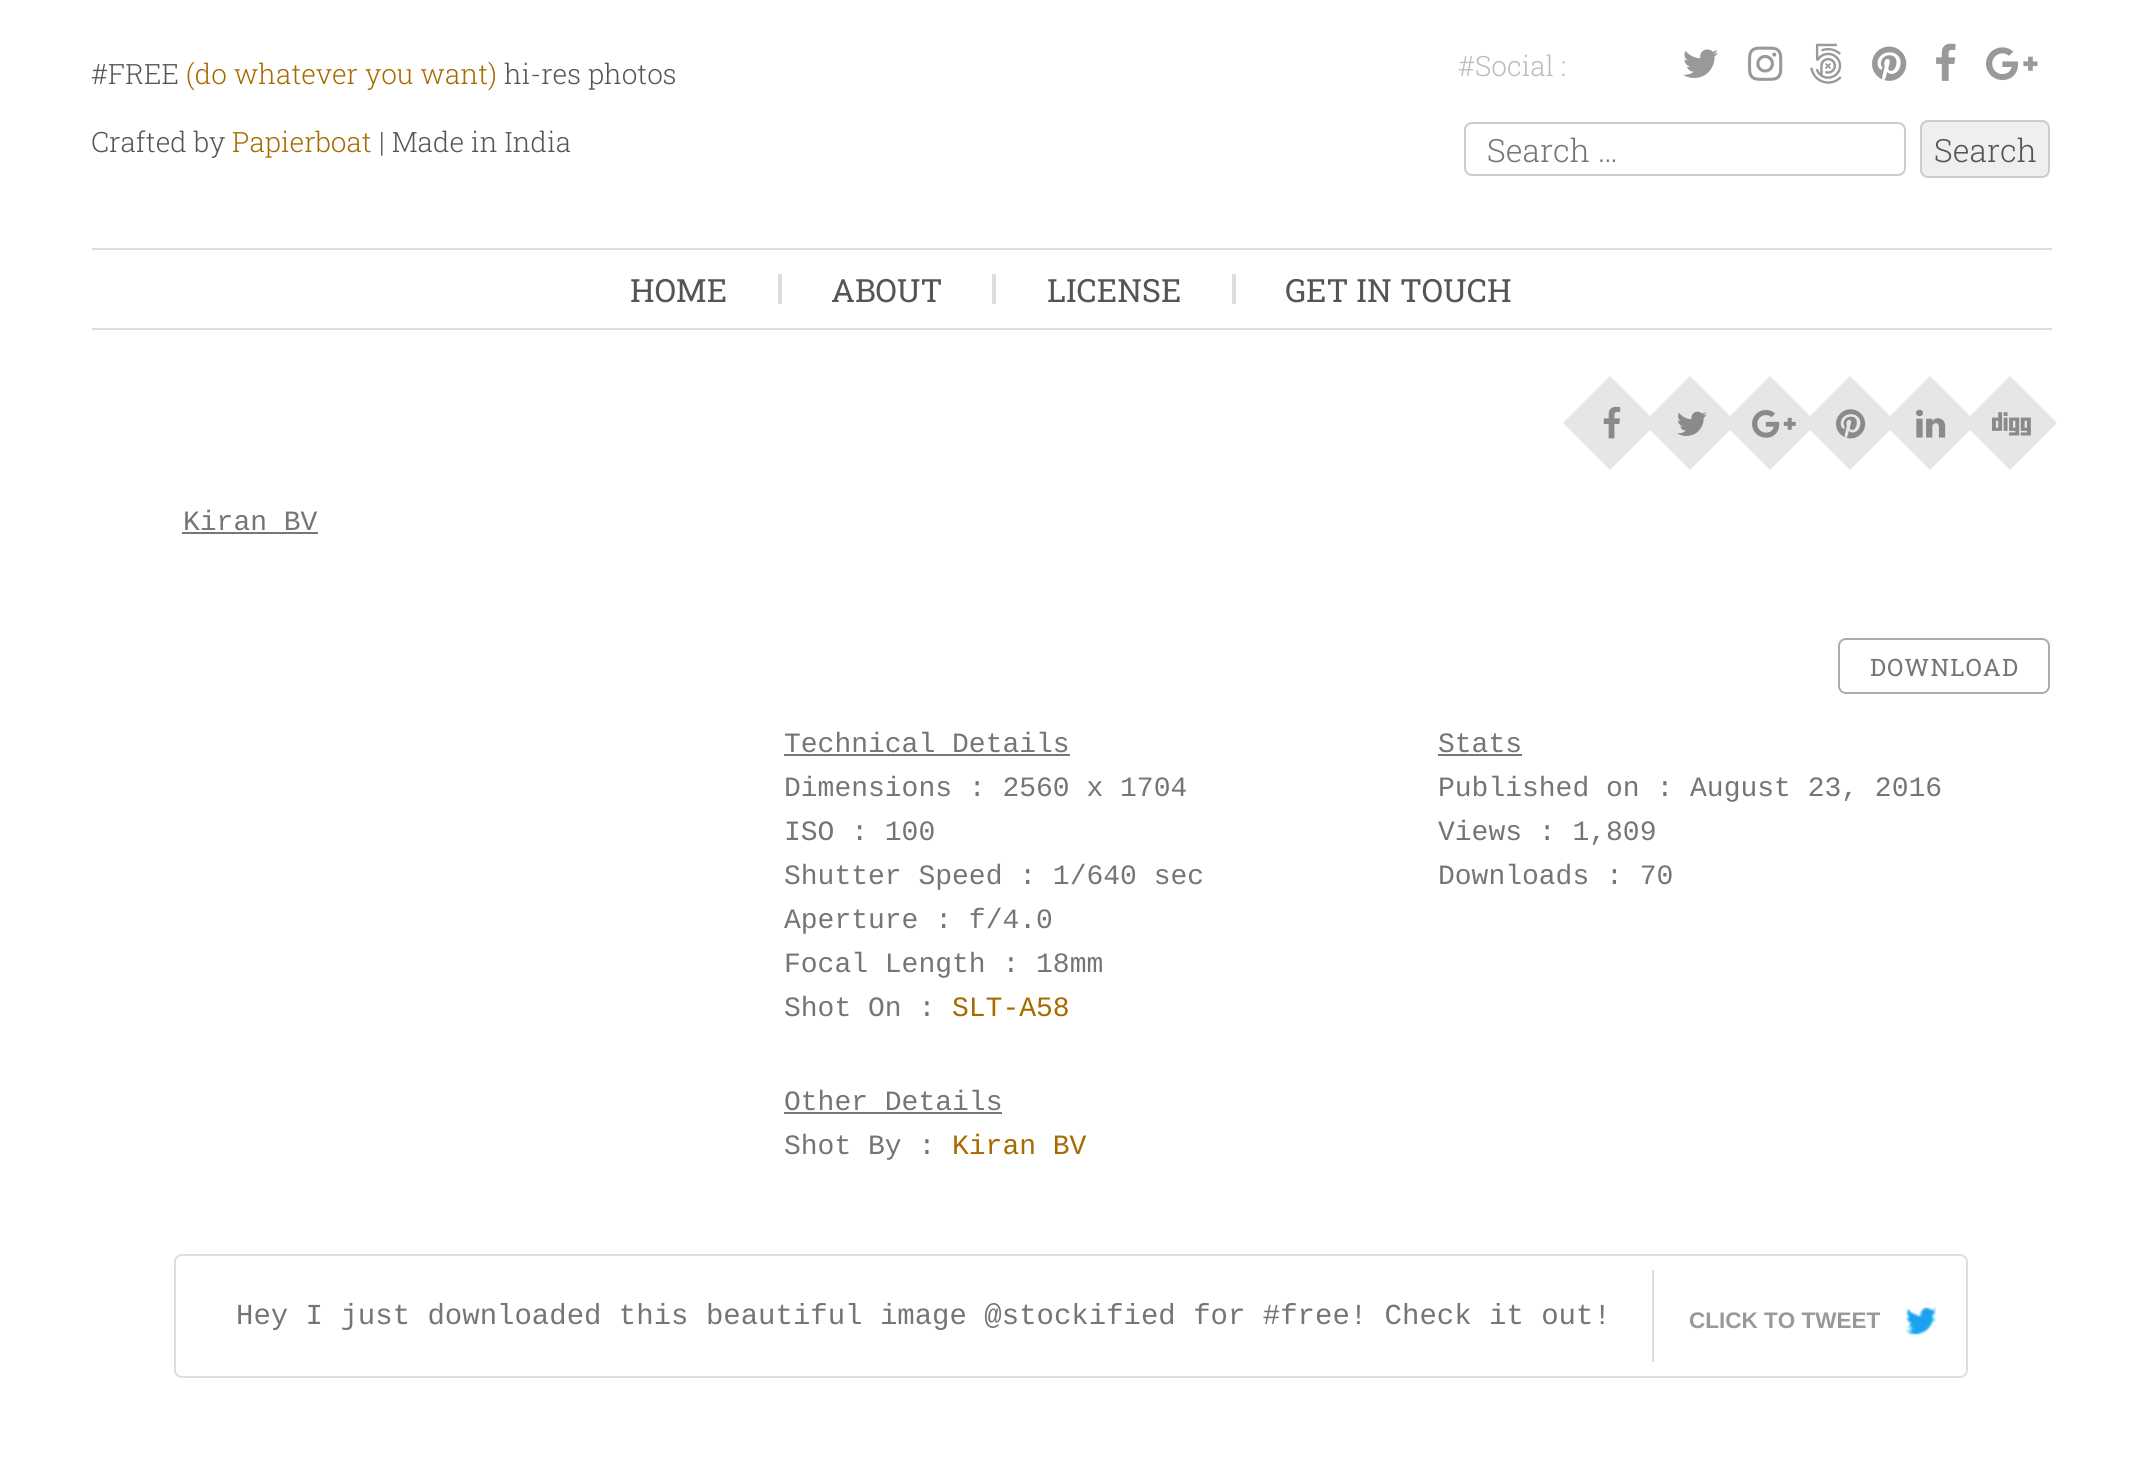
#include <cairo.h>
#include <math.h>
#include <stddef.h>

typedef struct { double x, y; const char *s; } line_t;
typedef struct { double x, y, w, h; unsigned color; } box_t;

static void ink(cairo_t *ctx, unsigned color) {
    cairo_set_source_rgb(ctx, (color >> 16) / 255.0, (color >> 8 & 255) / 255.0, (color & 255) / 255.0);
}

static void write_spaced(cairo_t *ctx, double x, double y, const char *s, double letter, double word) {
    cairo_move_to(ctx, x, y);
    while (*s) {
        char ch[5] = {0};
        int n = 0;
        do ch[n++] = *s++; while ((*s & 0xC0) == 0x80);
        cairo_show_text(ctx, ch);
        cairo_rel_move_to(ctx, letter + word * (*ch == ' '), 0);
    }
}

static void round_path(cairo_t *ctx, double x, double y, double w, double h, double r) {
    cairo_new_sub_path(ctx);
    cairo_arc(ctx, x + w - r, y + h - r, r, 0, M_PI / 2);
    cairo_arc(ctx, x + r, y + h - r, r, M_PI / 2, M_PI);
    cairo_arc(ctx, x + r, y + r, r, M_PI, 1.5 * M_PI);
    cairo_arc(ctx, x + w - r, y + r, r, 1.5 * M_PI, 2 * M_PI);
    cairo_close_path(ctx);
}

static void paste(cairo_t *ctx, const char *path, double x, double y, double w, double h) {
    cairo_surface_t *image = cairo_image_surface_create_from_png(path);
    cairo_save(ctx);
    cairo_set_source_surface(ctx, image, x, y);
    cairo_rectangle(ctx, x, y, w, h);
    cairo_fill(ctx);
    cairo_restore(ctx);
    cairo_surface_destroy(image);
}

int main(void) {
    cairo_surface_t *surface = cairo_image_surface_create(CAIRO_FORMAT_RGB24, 2142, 1484);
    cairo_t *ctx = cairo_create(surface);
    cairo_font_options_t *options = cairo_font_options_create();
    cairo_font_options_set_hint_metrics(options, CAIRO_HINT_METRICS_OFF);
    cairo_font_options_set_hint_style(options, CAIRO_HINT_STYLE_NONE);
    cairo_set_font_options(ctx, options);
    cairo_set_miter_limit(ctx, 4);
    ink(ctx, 0xFFFFFF);
    cairo_paint(ctx);
    cairo_select_font_face(ctx, "Roboto Slab Light", CAIRO_FONT_SLANT_NORMAL, CAIRO_FONT_WEIGHT_NORMAL);
    cairo_set_font_size(ctx, 28);
    ink(ctx, 0x555555);
    cairo_move_to(ctx, 91, 84);
    cairo_show_text(ctx, "#FREE");
    ink(ctx, 0xA76A00);
    cairo_move_to(ctx, 186, 84);
    cairo_show_text(ctx, "(do whatever you want)");
    ink(ctx, 0x555555);
    cairo_move_to(ctx, 504, 84);
    cairo_show_text(ctx, "hi-res photos");
    cairo_move_to(ctx, 91, 152);
    cairo_show_text(ctx, "Crafted by");
    ink(ctx, 0xA76A00);
    cairo_move_to(ctx, 232, 152);
    cairo_show_text(ctx, "Papierboat");
    ink(ctx, 0x555555);
    cairo_move_to(ctx, 379, 152);
    cairo_show_text(ctx, "| Made in India");
    ink(ctx, 0xBBBBBB);
    cairo_move_to(ctx, 1458, 76);
    cairo_show_text(ctx, "#Social :");
    paste(ctx, "media/1.png", 1683, 49, 35, 29);
    paste(ctx, "media/2.png", 1748, 46, 35, 35);
    paste(ctx, "media/3.png", 1810, 43, 32, 41);
    paste(ctx, "media/4.png", 1872, 46, 35, 35);
    paste(ctx, "media/5.png", 1936, 43, 20, 38);
    paste(ctx, "media/6.png", 1986, 47, 52, 34);
    round_path(ctx, 1465, 123, 440, 52, 7);
    ink(ctx, 0xCCCCCC);
    cairo_stroke(ctx);
    cairo_set_font_size(ctx, 32);
    ink(ctx, 0x757575);
    cairo_move_to(ctx, 1487, 162);
    cairo_show_text(ctx, "Search …");
    ink(ctx, 0xEFEFEF);
    round_path(ctx, 1921, 121, 128, 56, 7);
    cairo_fill_preserve(ctx);
    ink(ctx, 0xCCCCCC);
    cairo_stroke(ctx);
    ink(ctx, 0x555555);
    cairo_move_to(ctx, 1934, 162);
    cairo_show_text(ctx, "Search");
    {
        static const box_t items[] = {
            {92, 248, 1960, 2, 0xDDDDDD},
            {92, 328, 1960, 2, 0xDDDDDD},
            {778, 274, 4, 30, 0xDDDDDD},
        };
        for (size_t i = 0; i < sizeof items / sizeof *items; i++) {
            ink(ctx, items[i].color);
            cairo_rectangle(ctx, items[i].x, items[i].y, items[i].w, items[i].h);
            cairo_fill(ctx);
        }
    }
    cairo_select_font_face(ctx, "Roboto Slab", CAIRO_FONT_SLANT_NORMAL, CAIRO_FONT_WEIGHT_NORMAL);
    ink(ctx, 0x555555);
    cairo_move_to(ctx, 630, 302);
    cairo_show_text(ctx, "HOME");
    ink(ctx, 0xDDDDDD);
    cairo_rectangle(ctx, 992, 274, 4, 30);
    cairo_fill(ctx);
    ink(ctx, 0x555555);
    cairo_move_to(ctx, 831, 302);
    cairo_show_text(ctx, "ABOUT");
    ink(ctx, 0xDDDDDD);
    cairo_rectangle(ctx, 1232, 274, 4, 30);
    cairo_fill(ctx);
    ink(ctx, 0x555555);
    cairo_move_to(ctx, 1047, 302);
    cairo_show_text(ctx, "LICENSE");
    cairo_move_to(ctx, 1285, 302);
    cairo_show_text(ctx, "GET IN TOUCH");
    ink(ctx, 0xE6E6E6);
    cairo_new_path(ctx);
    cairo_move_to(ctx, 1610, 376);
    cairo_line_to(ctx, 1657, 423);
    cairo_line_to(ctx, 1610, 470);
    cairo_line_to(ctx, 1563, 423);
    cairo_close_path(ctx);
    cairo_fill(ctx);
    paste(ctx, "media/7.png", 1603, 406, 18, 33);
    cairo_new_path(ctx);
    cairo_move_to(ctx, 1690, 376);
    cairo_line_to(ctx, 1737, 423);
    cairo_line_to(ctx, 1690, 470);
    cairo_line_to(ctx, 1643, 423);
    cairo_close_path(ctx);
    cairo_fill(ctx);
    paste(ctx, "media/8.png", 1677, 411, 30, 25);
    cairo_new_path(ctx);
    cairo_move_to(ctx, 1770, 376);
    cairo_line_to(ctx, 1817, 423);
    cairo_line_to(ctx, 1770, 470);
    cairo_line_to(ctx, 1723, 423);
    cairo_close_path(ctx);
    cairo_fill(ctx);
    paste(ctx, "media/9.png", 1752, 410, 44, 28);
    cairo_new_path(ctx);
    cairo_move_to(ctx, 1850, 376);
    cairo_line_to(ctx, 1897, 423);
    cairo_line_to(ctx, 1850, 470);
    cairo_line_to(ctx, 1803, 423);
    cairo_close_path(ctx);
    cairo_fill(ctx);
    paste(ctx, "media/10.png", 1836, 409, 30, 30);
    cairo_new_path(ctx);
    cairo_move_to(ctx, 1930, 376);
    cairo_line_to(ctx, 1977, 423);
    cairo_line_to(ctx, 1930, 470);
    cairo_line_to(ctx, 1883, 423);
    cairo_close_path(ctx);
    cairo_fill(ctx);
    paste(ctx, "media/11.png", 1916, 409, 30, 29);
    cairo_new_path(ctx);
    cairo_move_to(ctx, 2010, 376);
    cairo_line_to(ctx, 2057, 423);
    cairo_line_to(ctx, 2010, 470);
    cairo_line_to(ctx, 1963, 423);
    cairo_close_path(ctx);
    cairo_fill(ctx);
    paste(ctx, "media/12.png", 1992, 412, 39, 24);
    cairo_select_font_face(ctx, "Liberation Mono", CAIRO_FONT_SLANT_NORMAL, CAIRO_FONT_WEIGHT_NORMAL);
    cairo_set_font_size(ctx, 28);
    ink(ctx, 0x757575);
    cairo_move_to(ctx, 183, 530);
    cairo_show_text(ctx, "Kiran BV");
    ink(ctx, 0x777777);
    cairo_rectangle(ctx, 182, 532, 136, 2);
    cairo_fill(ctx);
    round_path(ctx, 1839, 639, 210, 54, 7);
    ink(ctx, 0xACACAC);
    cairo_stroke(ctx);
    cairo_select_font_face(ctx, "Roboto Slab", CAIRO_FONT_SLANT_NORMAL, CAIRO_FONT_WEIGHT_NORMAL);
    cairo_set_font_size(ctx, 24);
    ink(ctx, 0x757575);
    write_spaced(ctx, 1870, 676, "DOWNLOAD", 1.25, 0);
    cairo_select_font_face(ctx, "Liberation Mono", CAIRO_FONT_SLANT_NORMAL, CAIRO_FONT_WEIGHT_NORMAL);
    cairo_set_font_size(ctx, 28);
    cairo_move_to(ctx, 784, 752);
    cairo_show_text(ctx, "Technical Details");
    ink(ctx, 0x777777);
    cairo_rectangle(ctx, 784, 754, 286, 2);
    cairo_fill(ctx);
    ink(ctx, 0x757575);
    {
        static const line_t items[] = {
            {784, 796, "Dimensions : 2560 x 1704"},
            {784, 840, "ISO : 100"},
            {784, 884, "Shutter Speed : 1/640 sec"},
            {784, 928, "Aperture : f/4.0"},
            {784, 972, "Focal Length : 18mm"},
            {784, 1016, "Shot On :"},
        };
        for (size_t i = 0; i < sizeof items / sizeof *items; i++) {
            cairo_move_to(ctx, items[i].x, items[i].y);
            cairo_show_text(ctx, items[i].s);
        }
    }
    ink(ctx, 0xA76A00);
    cairo_move_to(ctx, 952, 1016);
    cairo_show_text(ctx, "SLT-A58");
    ink(ctx, 0x757575);
    cairo_move_to(ctx, 784, 1110);
    cairo_show_text(ctx, "Other Details");
    ink(ctx, 0x777777);
    cairo_rectangle(ctx, 784, 1112, 218, 2);
    cairo_fill(ctx);
    ink(ctx, 0x757575);
    cairo_move_to(ctx, 784, 1154);
    cairo_show_text(ctx, "Shot By :");
    ink(ctx, 0xA76A00);
    cairo_move_to(ctx, 952, 1154);
    cairo_show_text(ctx, "Kiran BV");
    ink(ctx, 0x757575);
    cairo_move_to(ctx, 1438, 752);
    cairo_show_text(ctx, "Stats");
    ink(ctx, 0x777777);
    cairo_rectangle(ctx, 1438, 754, 84, 2);
    cairo_fill(ctx);
    ink(ctx, 0x757575);
    {
        static const line_t items[] = {
            {1438, 796, "Published on : August 23, 2016"},
            {1438, 840, "Views : 1,809"},
            {1438, 884, "Downloads : 70"},
        };
        for (size_t i = 0; i < sizeof items / sizeof *items; i++) {
            cairo_move_to(ctx, items[i].x, items[i].y);
            cairo_show_text(ctx, items[i].s);
        }
    }
    round_path(ctx, 175, 1255, 1792, 122, 7);
    ink(ctx, 0xDDDDDD);
    cairo_stroke(ctx);
    cairo_set_font_size(ctx, 29);
    ink(ctx, 0x757575);
    cairo_move_to(ctx, 236, 1324);
    cairo_show_text(ctx, "Hey I just downloaded this beautiful image @stockified for #free! Check it out!");
    ink(ctx, 0xDDDDDD);
    cairo_rectangle(ctx, 1652, 1270, 2, 92);
    cairo_fill(ctx);
    paste(ctx, "media/13.png", 1906, 1307, 30, 28);
    cairo_select_font_face(ctx, "Liberation Sans", CAIRO_FONT_SLANT_NORMAL, CAIRO_FONT_WEIGHT_BOLD);
    cairo_set_font_size(ctx, 22.5);
    ink(ctx, 0x999999);
    cairo_move_to(ctx, 1689, 1328);
    cairo_show_text(ctx, "CLICK TO TWEET");
    cairo_surface_write_to_png(surface, "image.png");
    cairo_font_options_destroy(options);
    cairo_destroy(ctx);
    cairo_surface_destroy(surface);
    return 0;
}
